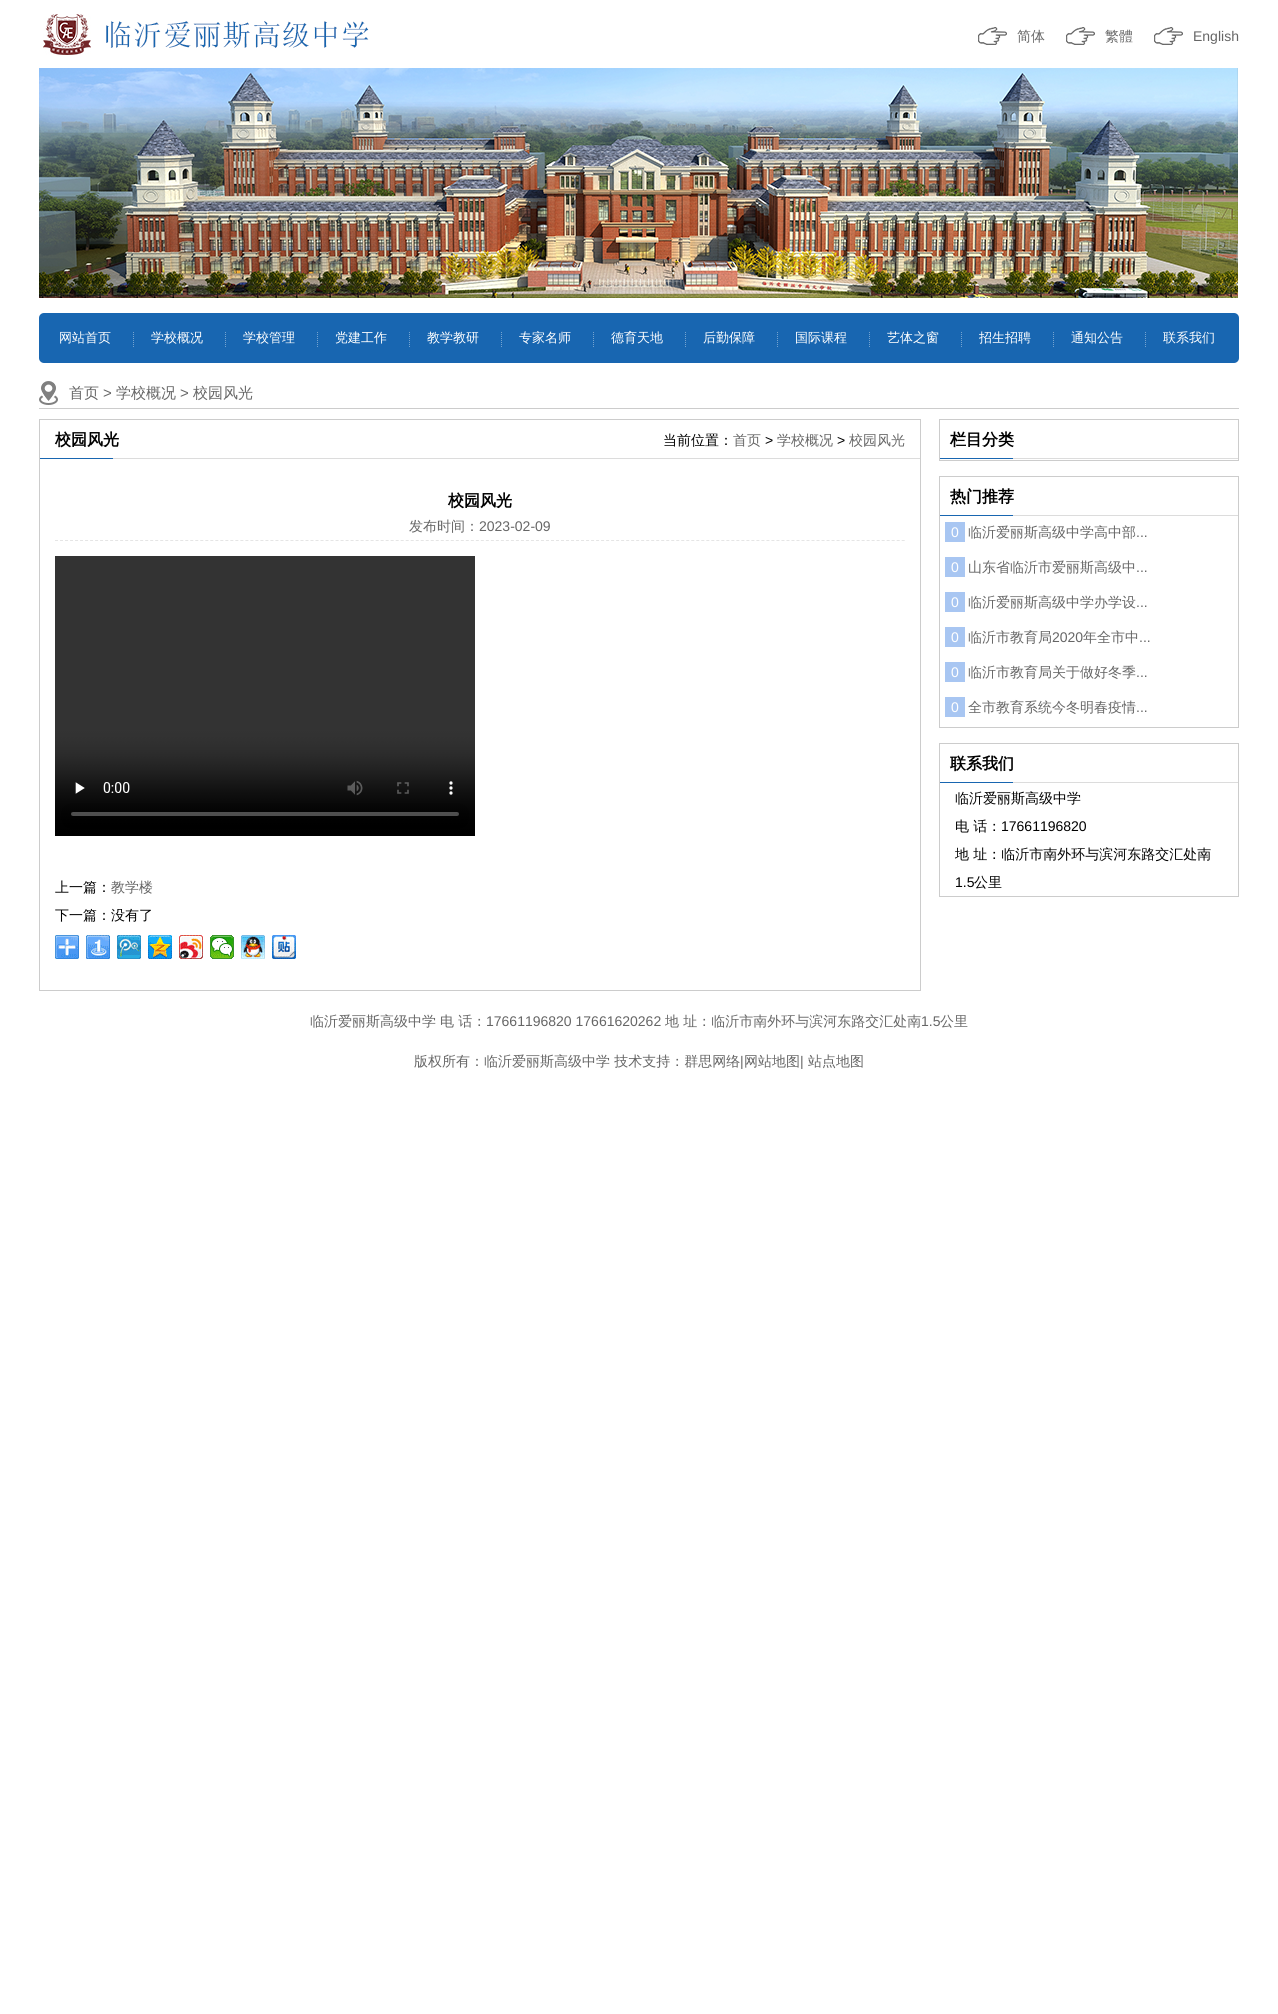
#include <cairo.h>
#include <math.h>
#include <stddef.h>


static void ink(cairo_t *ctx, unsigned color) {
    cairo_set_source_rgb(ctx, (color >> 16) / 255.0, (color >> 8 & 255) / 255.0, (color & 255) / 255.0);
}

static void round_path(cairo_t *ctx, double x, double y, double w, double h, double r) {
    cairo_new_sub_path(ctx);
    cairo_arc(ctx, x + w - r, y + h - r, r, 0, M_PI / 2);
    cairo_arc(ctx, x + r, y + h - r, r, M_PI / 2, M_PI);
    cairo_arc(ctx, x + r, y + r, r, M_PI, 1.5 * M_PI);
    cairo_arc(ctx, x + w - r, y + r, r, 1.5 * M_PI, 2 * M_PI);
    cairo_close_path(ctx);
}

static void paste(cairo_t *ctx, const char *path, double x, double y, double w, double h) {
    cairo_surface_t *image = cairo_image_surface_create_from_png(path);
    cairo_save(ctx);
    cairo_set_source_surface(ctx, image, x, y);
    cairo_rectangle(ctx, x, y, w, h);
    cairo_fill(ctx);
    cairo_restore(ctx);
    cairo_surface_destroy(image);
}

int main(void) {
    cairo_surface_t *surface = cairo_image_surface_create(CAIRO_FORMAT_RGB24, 1278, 2014);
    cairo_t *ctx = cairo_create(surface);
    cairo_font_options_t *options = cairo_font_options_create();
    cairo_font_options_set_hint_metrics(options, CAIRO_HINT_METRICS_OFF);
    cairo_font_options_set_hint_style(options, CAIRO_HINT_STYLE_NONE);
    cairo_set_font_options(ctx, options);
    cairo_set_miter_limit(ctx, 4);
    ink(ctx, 0xFFFFFF);
    cairo_paint(ctx);
    paste(ctx, "media/1.png", 43, 14, 326, 41);
    paste(ctx, "media/2.png", 978, 27, 29, 18);
    cairo_select_font_face(ctx, "WenQuanYi Zen Hei Medium", CAIRO_FONT_SLANT_NORMAL, CAIRO_FONT_WEIGHT_NORMAL);
    cairo_set_font_size(ctx, 14);
    ink(ctx, 0x666666);
    cairo_move_to(ctx, 1017, 41);
    cairo_show_text(ctx, "简体");
    paste(ctx, "media/2.png", 1066, 27, 29, 18);
    cairo_move_to(ctx, 1105, 41);
    cairo_show_text(ctx, "繁體");
    paste(ctx, "media/2.png", 1154, 27, 29, 18);
    cairo_select_font_face(ctx, "Liberation Sans", CAIRO_FONT_SLANT_NORMAL, CAIRO_FONT_WEIGHT_NORMAL);
    cairo_move_to(ctx, 1193, 41);
    cairo_show_text(ctx, "English");
    paste(ctx, "media/3.png", 39, 68, 1199, 230);
    ink(ctx, 0x1866B1);
    round_path(ctx, 39, 313, 1200, 50, 5);
    cairo_fill(ctx);
    cairo_select_font_face(ctx, "WenQuanYi Zen Hei Medium", CAIRO_FONT_SLANT_NORMAL, CAIRO_FONT_WEIGHT_NORMAL);
    cairo_set_font_size(ctx, 13);
    ink(ctx, 0xFFFFFF);
    cairo_move_to(ctx, 59, 342);
    cairo_show_text(ctx, "网站首页");
    paste(ctx, "media/4.png", 133, 332, 1, 15);
    cairo_move_to(ctx, 151, 342);
    cairo_show_text(ctx, "学校概况");
    paste(ctx, "media/4.png", 225, 332, 1, 15);
    cairo_move_to(ctx, 243, 342);
    cairo_show_text(ctx, "学校管理");
    paste(ctx, "media/4.png", 317, 332, 1, 15);
    cairo_move_to(ctx, 335, 342);
    cairo_show_text(ctx, "党建工作");
    paste(ctx, "media/4.png", 409, 332, 1, 15);
    cairo_move_to(ctx, 427, 342);
    cairo_show_text(ctx, "教学教研");
    paste(ctx, "media/4.png", 501, 332, 1, 15);
    cairo_move_to(ctx, 519, 342);
    cairo_show_text(ctx, "专家名师");
    paste(ctx, "media/4.png", 593, 332, 1, 15);
    cairo_move_to(ctx, 611, 342);
    cairo_show_text(ctx, "德育天地");
    paste(ctx, "media/4.png", 685, 332, 1, 15);
    cairo_move_to(ctx, 703, 342);
    cairo_show_text(ctx, "后勤保障");
    paste(ctx, "media/4.png", 777, 332, 1, 15);
    cairo_move_to(ctx, 795, 342);
    cairo_show_text(ctx, "国际课程");
    paste(ctx, "media/4.png", 869, 332, 1, 15);
    cairo_move_to(ctx, 887, 342);
    cairo_show_text(ctx, "艺体之窗");
    paste(ctx, "media/4.png", 961, 332, 1, 15);
    cairo_move_to(ctx, 979, 342);
    cairo_show_text(ctx, "招生招聘");
    paste(ctx, "media/4.png", 1053, 332, 1, 15);
    cairo_move_to(ctx, 1071, 342);
    cairo_show_text(ctx, "通知公告");
    paste(ctx, "media/4.png", 1145, 332, 1, 15);
    cairo_move_to(ctx, 1163, 342);
    cairo_show_text(ctx, "联系我们");
    ink(ctx, 0xCCCCCC);
    cairo_rectangle(ctx, 39, 408, 1200, 1);
    cairo_fill(ctx);
    paste(ctx, "media/5.png", 39, 381, 19, 24);
    cairo_set_font_size(ctx, 15);
    ink(ctx, 0x666666);
    cairo_move_to(ctx, 69, 398);
    cairo_show_text(ctx, "首页");
    cairo_select_font_face(ctx, "Liberation Sans", CAIRO_FONT_SLANT_NORMAL, CAIRO_FONT_WEIGHT_NORMAL);
    cairo_move_to(ctx, 103, 398);
    cairo_show_text(ctx, ">");
    cairo_select_font_face(ctx, "WenQuanYi Zen Hei Medium", CAIRO_FONT_SLANT_NORMAL, CAIRO_FONT_WEIGHT_NORMAL);
    cairo_move_to(ctx, 116, 398);
    cairo_show_text(ctx, "学校概况");
    cairo_select_font_face(ctx, "Liberation Sans", CAIRO_FONT_SLANT_NORMAL, CAIRO_FONT_WEIGHT_NORMAL);
    cairo_move_to(ctx, 180, 398);
    cairo_show_text(ctx, ">");
    cairo_select_font_face(ctx, "WenQuanYi Zen Hei Medium", CAIRO_FONT_SLANT_NORMAL, CAIRO_FONT_WEIGHT_NORMAL);
    cairo_move_to(ctx, 193, 398);
    cairo_show_text(ctx, "校园风光");
    cairo_rectangle(ctx, 39.5, 419.5, 881, 571);
    ink(ctx, 0xCCCCCC);
    cairo_set_line_width(ctx, 1);
    cairo_stroke(ctx);
    paste(ctx, "media/6.png", 40, 458, 880, 1);
    cairo_select_font_face(ctx, "WenQuanYi Zen Hei", CAIRO_FONT_SLANT_NORMAL, CAIRO_FONT_WEIGHT_BOLD);
    cairo_set_font_size(ctx, 16);
    ink(ctx, 0x000000);
    cairo_move_to(ctx, 55, 445);
    cairo_show_text(ctx, "校园风光");
    cairo_select_font_face(ctx, "WenQuanYi Zen Hei Medium", CAIRO_FONT_SLANT_NORMAL, CAIRO_FONT_WEIGHT_NORMAL);
    cairo_set_font_size(ctx, 14);
    cairo_move_to(ctx, 663, 445);
    cairo_show_text(ctx, "当前位置：");
    ink(ctx, 0x666666);
    cairo_move_to(ctx, 733, 445);
    cairo_show_text(ctx, "首页");
    cairo_select_font_face(ctx, "Liberation Sans", CAIRO_FONT_SLANT_NORMAL, CAIRO_FONT_WEIGHT_NORMAL);
    ink(ctx, 0x000000);
    cairo_move_to(ctx, 765, 445);
    cairo_show_text(ctx, ">");
    cairo_select_font_face(ctx, "WenQuanYi Zen Hei Medium", CAIRO_FONT_SLANT_NORMAL, CAIRO_FONT_WEIGHT_NORMAL);
    ink(ctx, 0x666666);
    cairo_move_to(ctx, 777, 445);
    cairo_show_text(ctx, "学校概况");
    cairo_select_font_face(ctx, "Liberation Sans", CAIRO_FONT_SLANT_NORMAL, CAIRO_FONT_WEIGHT_NORMAL);
    ink(ctx, 0x000000);
    cairo_move_to(ctx, 837, 445);
    cairo_show_text(ctx, ">");
    cairo_select_font_face(ctx, "WenQuanYi Zen Hei Medium", CAIRO_FONT_SLANT_NORMAL, CAIRO_FONT_WEIGHT_NORMAL);
    ink(ctx, 0x666666);
    cairo_move_to(ctx, 849, 445);
    cairo_show_text(ctx, "校园风光");
    cairo_select_font_face(ctx, "WenQuanYi Zen Hei", CAIRO_FONT_SLANT_NORMAL, CAIRO_FONT_WEIGHT_BOLD);
    cairo_set_font_size(ctx, 16);
    ink(ctx, 0x000000);
    cairo_move_to(ctx, 448, 506);
    cairo_show_text(ctx, "校园风光");
    cairo_new_path(ctx);
    cairo_move_to(ctx, 55, 540.5);
    cairo_line_to(ctx, 905, 540.5);
    ink(ctx, 0xE5E5E5);
    cairo_set_dash(ctx, (double[]){3, 2.01}, 2, 0);
    cairo_stroke(ctx);
    cairo_select_font_face(ctx, "WenQuanYi Zen Hei Medium", CAIRO_FONT_SLANT_NORMAL, CAIRO_FONT_WEIGHT_NORMAL);
    cairo_set_font_size(ctx, 14);
    ink(ctx, 0x666666);
    cairo_move_to(ctx, 409, 531);
    cairo_show_text(ctx, "发布时间：");
    cairo_select_font_face(ctx, "Liberation Sans", CAIRO_FONT_SLANT_NORMAL, CAIRO_FONT_WEIGHT_NORMAL);
    cairo_move_to(ctx, 479, 531);
    cairo_show_text(ctx, "2023-02-09");
    paste(ctx, "media/7.png", 55, 556, 420, 280);
    cairo_select_font_face(ctx, "WenQuanYi Zen Hei Medium", CAIRO_FONT_SLANT_NORMAL, CAIRO_FONT_WEIGHT_NORMAL);
    ink(ctx, 0x000000);
    cairo_move_to(ctx, 55, 892);
    cairo_show_text(ctx, "上一篇：");
    ink(ctx, 0x666666);
    cairo_move_to(ctx, 111, 892);
    cairo_show_text(ctx, "教学楼");
    ink(ctx, 0x000000);
    cairo_move_to(ctx, 55, 920);
    cairo_show_text(ctx, "下一篇：没有了");
    paste(ctx, "media/8.png", 55, 935, 24, 24);
    paste(ctx, "media/9.png", 86, 935, 24, 24);
    paste(ctx, "media/10.png", 117, 935, 24, 24);
    paste(ctx, "media/11.png", 148, 935, 24, 24);
    paste(ctx, "media/12.png", 179, 935, 24, 24);
    paste(ctx, "media/13.png", 210, 935, 24, 24);
    paste(ctx, "media/14.png", 241, 935, 24, 24);
    paste(ctx, "media/15.png", 272, 935, 24, 24);
    cairo_rectangle(ctx, 939.5, 419.5, 299, 41);
    ink(ctx, 0xCCCCCC);
    cairo_set_dash(ctx, NULL, 0, 0);
    cairo_stroke(ctx);
    paste(ctx, "media/16.png", 940, 458, 298, 1);
    cairo_select_font_face(ctx, "WenQuanYi Zen Hei", CAIRO_FONT_SLANT_NORMAL, CAIRO_FONT_WEIGHT_BOLD);
    cairo_set_font_size(ctx, 16);
    ink(ctx, 0x000000);
    cairo_move_to(ctx, 950, 445);
    cairo_show_text(ctx, "栏目分类");
    cairo_rectangle(ctx, 939.5, 476.5, 299, 251);
    ink(ctx, 0xCCCCCC);
    cairo_stroke(ctx);
    paste(ctx, "media/16.png", 940, 515, 298, 1);
    ink(ctx, 0x000000);
    cairo_move_to(ctx, 950, 502);
    cairo_show_text(ctx, "热门推荐");
    ink(ctx, 0xA8C6F2);
    cairo_rectangle(ctx, 945, 522, 20, 20);
    cairo_fill(ctx);
    cairo_select_font_face(ctx, "Liberation Sans", CAIRO_FONT_SLANT_NORMAL, CAIRO_FONT_WEIGHT_NORMAL);
    cairo_set_font_size(ctx, 14);
    ink(ctx, 0xFFFFFF);
    cairo_move_to(ctx, 951, 537);
    cairo_show_text(ctx, "0");
    cairo_select_font_face(ctx, "WenQuanYi Zen Hei Medium", CAIRO_FONT_SLANT_NORMAL, CAIRO_FONT_WEIGHT_NORMAL);
    ink(ctx, 0x666666);
    cairo_move_to(ctx, 968, 537);
    cairo_show_text(ctx, "临沂爱丽斯高级中学高中部");
    cairo_select_font_face(ctx, "Liberation Sans", CAIRO_FONT_SLANT_NORMAL, CAIRO_FONT_WEIGHT_NORMAL);
    cairo_move_to(ctx, 1136, 537);
    cairo_show_text(ctx, "...");
    ink(ctx, 0xA8C6F2);
    cairo_rectangle(ctx, 945, 557, 20, 20);
    cairo_fill(ctx);
    ink(ctx, 0xFFFFFF);
    cairo_move_to(ctx, 951, 572);
    cairo_show_text(ctx, "0");
    cairo_select_font_face(ctx, "WenQuanYi Zen Hei Medium", CAIRO_FONT_SLANT_NORMAL, CAIRO_FONT_WEIGHT_NORMAL);
    ink(ctx, 0x666666);
    cairo_move_to(ctx, 968, 572);
    cairo_show_text(ctx, "山东省临沂市爱丽斯高级中");
    cairo_select_font_face(ctx, "Liberation Sans", CAIRO_FONT_SLANT_NORMAL, CAIRO_FONT_WEIGHT_NORMAL);
    cairo_move_to(ctx, 1136, 572);
    cairo_show_text(ctx, "...");
    ink(ctx, 0xA8C6F2);
    cairo_rectangle(ctx, 945, 592, 20, 20);
    cairo_fill(ctx);
    ink(ctx, 0xFFFFFF);
    cairo_move_to(ctx, 951, 607);
    cairo_show_text(ctx, "0");
    cairo_select_font_face(ctx, "WenQuanYi Zen Hei Medium", CAIRO_FONT_SLANT_NORMAL, CAIRO_FONT_WEIGHT_NORMAL);
    ink(ctx, 0x666666);
    cairo_move_to(ctx, 968, 607);
    cairo_show_text(ctx, "临沂爱丽斯高级中学办学设");
    cairo_select_font_face(ctx, "Liberation Sans", CAIRO_FONT_SLANT_NORMAL, CAIRO_FONT_WEIGHT_NORMAL);
    cairo_move_to(ctx, 1136, 607);
    cairo_show_text(ctx, "...");
    ink(ctx, 0xA8C6F2);
    cairo_rectangle(ctx, 945, 627, 20, 20);
    cairo_fill(ctx);
    ink(ctx, 0xFFFFFF);
    cairo_move_to(ctx, 951, 642);
    cairo_show_text(ctx, "0");
    cairo_select_font_face(ctx, "WenQuanYi Zen Hei Medium", CAIRO_FONT_SLANT_NORMAL, CAIRO_FONT_WEIGHT_NORMAL);
    ink(ctx, 0x666666);
    cairo_move_to(ctx, 968, 642);
    cairo_show_text(ctx, "临沂市教育局");
    cairo_select_font_face(ctx, "Liberation Sans", CAIRO_FONT_SLANT_NORMAL, CAIRO_FONT_WEIGHT_NORMAL);
    cairo_move_to(ctx, 1052, 642);
    cairo_show_text(ctx, "2020");
    cairo_select_font_face(ctx, "WenQuanYi Zen Hei Medium", CAIRO_FONT_SLANT_NORMAL, CAIRO_FONT_WEIGHT_NORMAL);
    cairo_move_to(ctx, 1083, 642);
    cairo_show_text(ctx, "年全市中");
    cairo_select_font_face(ctx, "Liberation Sans", CAIRO_FONT_SLANT_NORMAL, CAIRO_FONT_WEIGHT_NORMAL);
    cairo_move_to(ctx, 1139, 642);
    cairo_show_text(ctx, "...");
    ink(ctx, 0xA8C6F2);
    cairo_rectangle(ctx, 945, 662, 20, 20);
    cairo_fill(ctx);
    ink(ctx, 0xFFFFFF);
    cairo_move_to(ctx, 951, 677);
    cairo_show_text(ctx, "0");
    cairo_select_font_face(ctx, "WenQuanYi Zen Hei Medium", CAIRO_FONT_SLANT_NORMAL, CAIRO_FONT_WEIGHT_NORMAL);
    ink(ctx, 0x666666);
    cairo_move_to(ctx, 968, 677);
    cairo_show_text(ctx, "临沂市教育局关于做好冬季");
    cairo_select_font_face(ctx, "Liberation Sans", CAIRO_FONT_SLANT_NORMAL, CAIRO_FONT_WEIGHT_NORMAL);
    cairo_move_to(ctx, 1136, 677);
    cairo_show_text(ctx, "...");
    ink(ctx, 0xA8C6F2);
    cairo_rectangle(ctx, 945, 697, 20, 20);
    cairo_fill(ctx);
    ink(ctx, 0xFFFFFF);
    cairo_move_to(ctx, 951, 712);
    cairo_show_text(ctx, "0");
    cairo_select_font_face(ctx, "WenQuanYi Zen Hei Medium", CAIRO_FONT_SLANT_NORMAL, CAIRO_FONT_WEIGHT_NORMAL);
    ink(ctx, 0x666666);
    cairo_move_to(ctx, 968, 712);
    cairo_show_text(ctx, "全市教育系统今冬明春疫情");
    cairo_select_font_face(ctx, "Liberation Sans", CAIRO_FONT_SLANT_NORMAL, CAIRO_FONT_WEIGHT_NORMAL);
    cairo_move_to(ctx, 1136, 712);
    cairo_show_text(ctx, "...");
    cairo_rectangle(ctx, 939.5, 743.5, 299, 153);
    ink(ctx, 0xCCCCCC);
    cairo_stroke(ctx);
    paste(ctx, "media/16.png", 940, 782, 298, 1);
    cairo_select_font_face(ctx, "WenQuanYi Zen Hei", CAIRO_FONT_SLANT_NORMAL, CAIRO_FONT_WEIGHT_BOLD);
    cairo_set_font_size(ctx, 16);
    ink(ctx, 0x000000);
    cairo_move_to(ctx, 950, 769);
    cairo_show_text(ctx, "联系我们");
    cairo_select_font_face(ctx, "WenQuanYi Zen Hei Medium", CAIRO_FONT_SLANT_NORMAL, CAIRO_FONT_WEIGHT_NORMAL);
    cairo_set_font_size(ctx, 14);
    cairo_move_to(ctx, 955, 803);
    cairo_show_text(ctx, "临沂爱丽斯高级中学");
    cairo_move_to(ctx, 955, 831);
    cairo_show_text(ctx, "电 话：");
    cairo_select_font_face(ctx, "Liberation Sans", CAIRO_FONT_SLANT_NORMAL, CAIRO_FONT_WEIGHT_NORMAL);
    cairo_move_to(ctx, 1001, 831);
    cairo_show_text(ctx, "17661196820");
    cairo_select_font_face(ctx, "WenQuanYi Zen Hei Medium", CAIRO_FONT_SLANT_NORMAL, CAIRO_FONT_WEIGHT_NORMAL);
    cairo_move_to(ctx, 955, 859);
    cairo_show_text(ctx, "地 址：临沂市南外环与滨河东路交汇处南");
    cairo_select_font_face(ctx, "Liberation Sans", CAIRO_FONT_SLANT_NORMAL, CAIRO_FONT_WEIGHT_NORMAL);
    cairo_move_to(ctx, 955, 887);
    cairo_show_text(ctx, "1.5");
    cairo_select_font_face(ctx, "WenQuanYi Zen Hei Medium", CAIRO_FONT_SLANT_NORMAL, CAIRO_FONT_WEIGHT_NORMAL);
    cairo_move_to(ctx, 974, 887);
    cairo_show_text(ctx, "公里");
    ink(ctx, 0x666666);
    cairo_move_to(ctx, 310, 1026);
    cairo_show_text(ctx, "临沂爱丽斯高级中学");
    cairo_move_to(ctx, 440, 1026);
    cairo_show_text(ctx, "电 话：");
    cairo_select_font_face(ctx, "Liberation Sans", CAIRO_FONT_SLANT_NORMAL, CAIRO_FONT_WEIGHT_NORMAL);
    cairo_move_to(ctx, 486, 1026);
    cairo_show_text(ctx, "17661196820 17661620262");
    cairo_select_font_face(ctx, "WenQuanYi Zen Hei Medium", CAIRO_FONT_SLANT_NORMAL, CAIRO_FONT_WEIGHT_NORMAL);
    cairo_move_to(ctx, 665, 1026);
    cairo_show_text(ctx, "地 址：临沂市南外环与滨河东路交汇处南");
    cairo_select_font_face(ctx, "Liberation Sans", CAIRO_FONT_SLANT_NORMAL, CAIRO_FONT_WEIGHT_NORMAL);
    cairo_move_to(ctx, 921, 1026);
    cairo_show_text(ctx, "1.5");
    cairo_select_font_face(ctx, "WenQuanYi Zen Hei Medium", CAIRO_FONT_SLANT_NORMAL, CAIRO_FONT_WEIGHT_NORMAL);
    cairo_move_to(ctx, 940, 1026);
    cairo_show_text(ctx, "公里");
    cairo_move_to(ctx, 414, 1066);
    cairo_show_text(ctx, "版权所有：临沂爱丽斯高级中学 技术支持：群思网络");
    cairo_select_font_face(ctx, "Liberation Sans", CAIRO_FONT_SLANT_NORMAL, CAIRO_FONT_WEIGHT_NORMAL);
    cairo_move_to(ctx, 740, 1066);
    cairo_show_text(ctx, "|");
    cairo_select_font_face(ctx, "WenQuanYi Zen Hei Medium", CAIRO_FONT_SLANT_NORMAL, CAIRO_FONT_WEIGHT_NORMAL);
    cairo_move_to(ctx, 744, 1066);
    cairo_show_text(ctx, "网站地图");
    cairo_select_font_face(ctx, "Liberation Sans", CAIRO_FONT_SLANT_NORMAL, CAIRO_FONT_WEIGHT_NORMAL);
    cairo_move_to(ctx, 800, 1066);
    cairo_show_text(ctx, "|");
    cairo_select_font_face(ctx, "WenQuanYi Zen Hei Medium", CAIRO_FONT_SLANT_NORMAL, CAIRO_FONT_WEIGHT_NORMAL);
    cairo_move_to(ctx, 808, 1066);
    cairo_show_text(ctx, "站点地图");
    cairo_surface_write_to_png(surface, "image.png");
    cairo_font_options_destroy(options);
    cairo_destroy(ctx);
    cairo_surface_destroy(surface);
    return 0;
}
